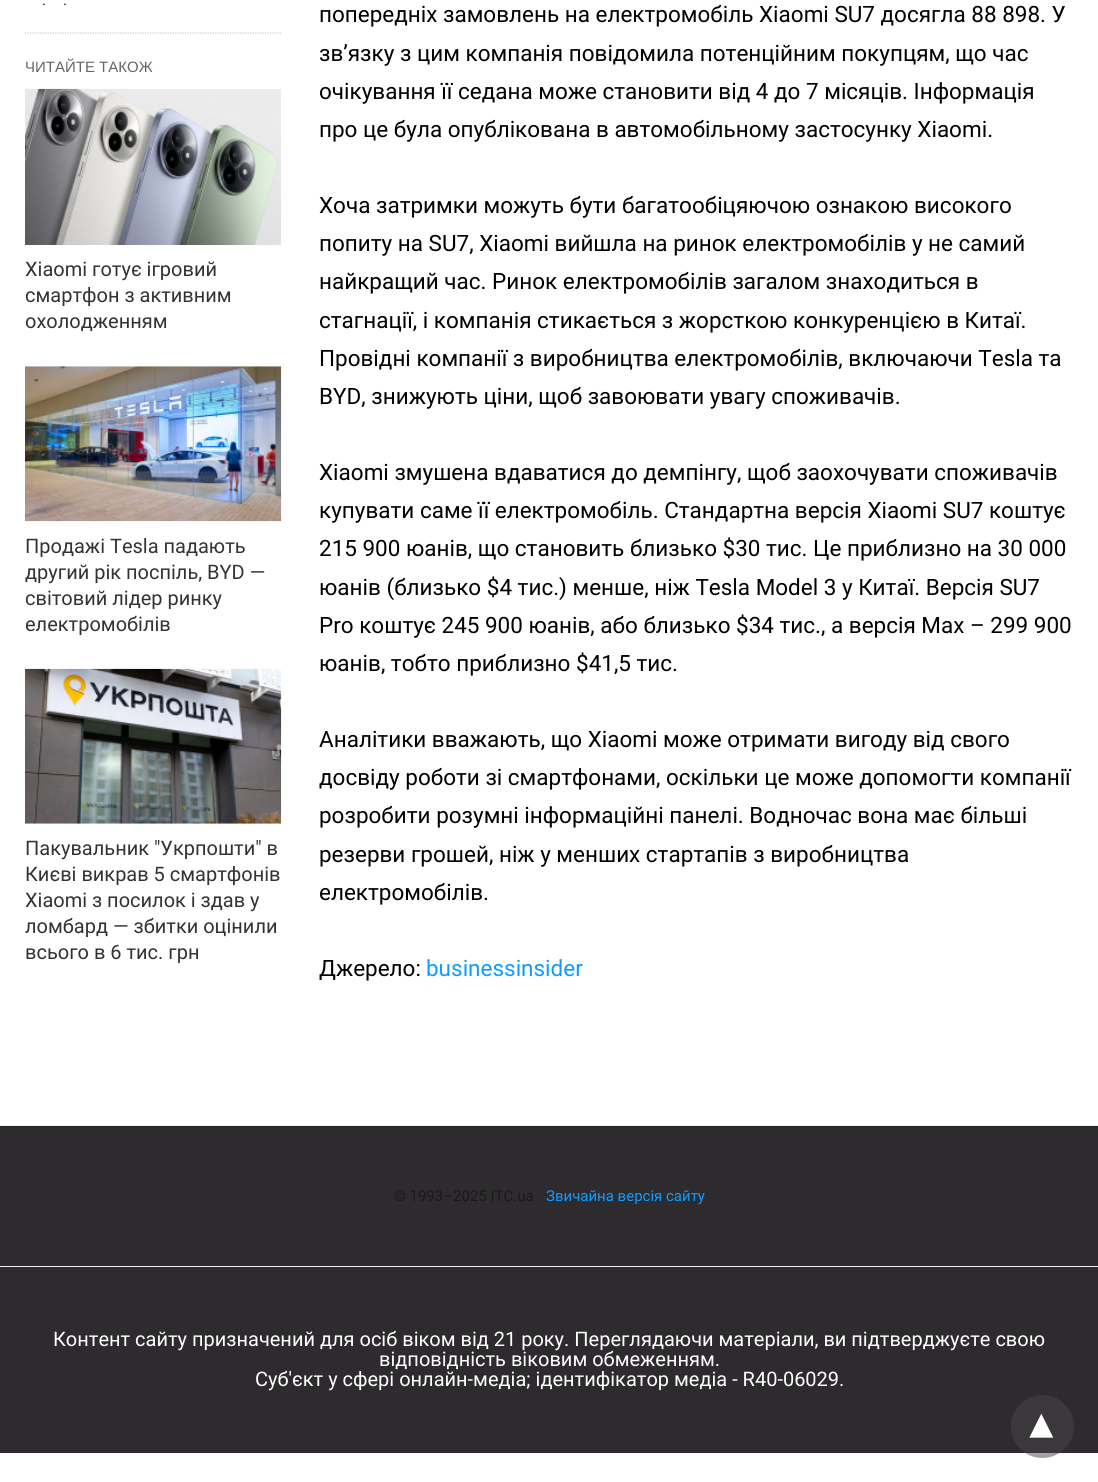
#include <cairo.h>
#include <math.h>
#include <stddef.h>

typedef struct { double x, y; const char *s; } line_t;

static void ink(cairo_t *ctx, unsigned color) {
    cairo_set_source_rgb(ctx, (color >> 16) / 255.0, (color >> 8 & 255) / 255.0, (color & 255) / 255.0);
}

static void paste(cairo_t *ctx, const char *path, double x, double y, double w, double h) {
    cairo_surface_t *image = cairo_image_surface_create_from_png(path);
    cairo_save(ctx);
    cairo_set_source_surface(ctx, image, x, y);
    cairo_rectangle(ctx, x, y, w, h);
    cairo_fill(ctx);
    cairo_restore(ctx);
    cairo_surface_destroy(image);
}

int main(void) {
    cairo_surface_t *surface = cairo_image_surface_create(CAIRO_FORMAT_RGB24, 1098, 1482);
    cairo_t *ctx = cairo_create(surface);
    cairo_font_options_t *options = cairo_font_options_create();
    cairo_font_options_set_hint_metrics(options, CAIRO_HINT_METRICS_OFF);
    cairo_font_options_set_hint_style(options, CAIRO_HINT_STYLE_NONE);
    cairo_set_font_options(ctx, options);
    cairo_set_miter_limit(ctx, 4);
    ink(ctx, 0xFFFFFF);
    cairo_paint(ctx);
    cairo_new_path(ctx);
    cairo_move_to(ctx, 25, 33);
    cairo_line_to(ctx, 281, 33);
    ink(ctx, 0xCCCCCC);
    cairo_set_line_width(ctx, 1.2);
    cairo_set_dash(ctx, (double[]){1.25, 1.25}, 2, 0);
    cairo_stroke(ctx);
    cairo_select_font_face(ctx, "Roboto", CAIRO_FONT_SLANT_NORMAL, CAIRO_FONT_WEIGHT_NORMAL);
    cairo_set_font_size(ctx, 15);
    ink(ctx, 0x191919);
    cairo_move_to(ctx, 42, 5);
    cairo_show_text(ctx, ".");
    cairo_move_to(ctx, 63, 5);
    cairo_show_text(ctx, ".");
    cairo_select_font_face(ctx, "Liberation Sans", CAIRO_FONT_SLANT_NORMAL, CAIRO_FONT_WEIGHT_NORMAL);
    ink(ctx, 0x666666);
    cairo_move_to(ctx, 25, 72);
    cairo_show_text(ctx, "ЧИТАЙТЕ ТАКОЖ");
    paste(ctx, "media/1.png", 25, 88, 256, 157);
    cairo_select_font_face(ctx, "Roboto", CAIRO_FONT_SLANT_NORMAL, CAIRO_FONT_WEIGHT_NORMAL);
    cairo_set_font_size(ctx, 20);
    ink(ctx, 0x333333);
    {
        static const line_t items[] = {
            {25, 276, "Xiaomi готує ігровий"},
            {25, 302, "смартфон з активним"},
            {25, 328, "охолодженням"},
        };
        for (size_t i = 0; i < sizeof items / sizeof *items; i++) {
            cairo_move_to(ctx, items[i].x, items[i].y);
            cairo_show_text(ctx, items[i].s);
        }
    }
    paste(ctx, "media/2.png", 25, 366, 257, 156);
    {
        static const line_t items[] = {
            {25, 553, "Продажі Tesla падають"},
            {25, 579, "другий рік поспіль, BYD —"},
            {25, 605, "світовий лідер ринку"},
            {25, 631, "електромобілів"},
        };
        for (size_t i = 0; i < sizeof items / sizeof *items; i++) {
            cairo_move_to(ctx, items[i].x, items[i].y);
            cairo_show_text(ctx, items[i].s);
        }
    }
    paste(ctx, "media/3.png", 25, 668, 257, 156);
    {
        static const line_t items[] = {
            {25, 855, "Пакувальник \"Укрпошти\" в"},
            {25, 881, "Києві викрав 5 смартфонів"},
            {25, 907, "Xiaomi з посилок і здав у"},
            {25, 933, "ломбард — збитки оцінили"},
            {25, 959, "всього в 6 тис. грн"},
        };
        for (size_t i = 0; i < sizeof items / sizeof *items; i++) {
            cairo_move_to(ctx, items[i].x, items[i].y);
            cairo_show_text(ctx, items[i].s);
        }
    }
    cairo_set_font_size(ctx, 22.5);
    ink(ctx, 0x000000);
    {
        static const line_t items[] = {
            {319, 22, "попередніх замовлень на електромобіль Xiaomi SU7 досягла 88 898. У"},
            {319, 61, "зв’язку з цим компанія повідомила потенційним покупцям, що час"},
            {319, 99, "очікування її седана може становити від 4 до 7 місяців. Інформація"},
            {319, 137, "про це була опублікована в автомобільному застосунку Xiaomi."},
            {319, 213, "Хоча затримки можуть бути багатообіцяючою ознакою високого"},
            {319, 251, "попиту на SU7, Xiaomi вийшла на ринок електромобілів у не самий"},
            {319, 289, "найкращий час. Ринок електромобілів загалом знаходиться в"},
            {319, 328, "стагнації, і компанія стикається з жорсткою конкуренцією в Китаї."},
            {319, 366, "Провідні компанії з виробництва електромобілів, включаючи Tesla та"},
            {319, 404, "BYD, знижують ціни, щоб завоювати увагу споживачів."},
            {319, 480, "Xiaomi змушена вдаватися до демпінгу, щоб заохочувати споживачів"},
            {319, 518, "купувати саме її електромобіль. Стандартна версія Xiaomi SU7 коштує"},
            {319, 556, "215 900 юанів, що становить близько $30 тис. Це приблизно на 30 000"},
            {319, 595, "юанів (близько $4 тис.) менше, ніж Tesla Model 3 у Китаї. Версія SU7"},
            {319, 633, "Pro коштує 245 900 юанів, або близько $34 тис., а версія Max – 299 900"},
            {319, 671, "юанів, тобто приблизно $41,5 тис."},
            {319, 747, "Аналітики вважають, що Xiaomi може отримати вигоду від свого"},
            {319, 785, "досвіду роботи зі смартфонами, оскільки це може допомогти компанії"},
            {319, 823, "розробити розумні інформаційні панелі. Водночас вона має більші"},
            {319, 862, "резерви грошей, ніж у менших стартапів з виробництва"},
            {319, 900, "електромобілів."},
            {319, 976, "Джерело:"},
        };
        for (size_t i = 0; i < sizeof items / sizeof *items; i++) {
            cairo_move_to(ctx, items[i].x, items[i].y);
            cairo_show_text(ctx, items[i].s);
        }
    }
    ink(ctx, 0x109BFF);
    cairo_move_to(ctx, 426, 976);
    cairo_show_text(ctx, "businessinsider");
    ink(ctx, 0x2E2B2E);
    cairo_rectangle(ctx, 0, 1126, 1098, 140);
    cairo_fill(ctx);
    ink(ctx, 0xEEEEEE);
    cairo_rectangle(ctx, 0, 1125, 1098, 1);
    cairo_fill(ctx);
    cairo_set_font_size(ctx, 15);
    ink(ctx, 0x191919);
    cairo_move_to(ctx, 394, 1201);
    cairo_show_text(ctx, "© 1993–2025 ITC.ua");
    ink(ctx, 0x109BFF);
    cairo_move_to(ctx, 546, 1201);
    cairo_show_text(ctx, "Звичайна версія сайту");
    ink(ctx, 0x2E2B2E);
    cairo_rectangle(ctx, 0, 1267, 1098, 186);
    cairo_fill(ctx);
    ink(ctx, 0xEEEEEE);
    cairo_rectangle(ctx, 0, 1266, 1098, 1);
    cairo_fill(ctx);
    cairo_set_font_size(ctx, 20);
    ink(ctx, 0xFFFFFF);
    {
        static const line_t items[] = {
            {53, 1346, "Контент сайту призначений для осіб віком від 21 року. Переглядаючи матеріали, ви підтверджуєте свою"},
            {379, 1366, "відповідність віковим обмеженням."},
            {255, 1386, "Cуб'єкт у сфері онлайн-медіа; ідентифікатор медіа - R40-06029."},
        };
        for (size_t i = 0; i < sizeof items / sizeof *items; i++) {
            cairo_move_to(ctx, items[i].x, items[i].y);
            cairo_show_text(ctx, items[i].s);
        }
    }
    cairo_set_source_rgba(ctx, 0.278, 0.278, 0.278, 0.5);
    cairo_new_path(ctx);
    cairo_arc(ctx, 1042.5, 1426.5, 31.5, 0, 2 * M_PI);
    cairo_fill(ctx);
    cairo_select_font_face(ctx, "DejaVu Sans", CAIRO_FONT_SLANT_NORMAL, CAIRO_FONT_WEIGHT_BOLD);
    cairo_set_font_size(ctx, 44);
    ink(ctx, 0xFFFFFF);
    cairo_save(ctx);
    cairo_translate(ctx, 1053, 1414);
    cairo_rotate(ctx, 180 * M_PI / 180);
    cairo_move_to(ctx, 0, 0);
    cairo_show_text(ctx, "▾");
    cairo_restore(ctx);
    cairo_surface_write_to_png(surface, "image.png");
    cairo_font_options_destroy(options);
    cairo_destroy(ctx);
    cairo_surface_destroy(surface);
    return 0;
}
